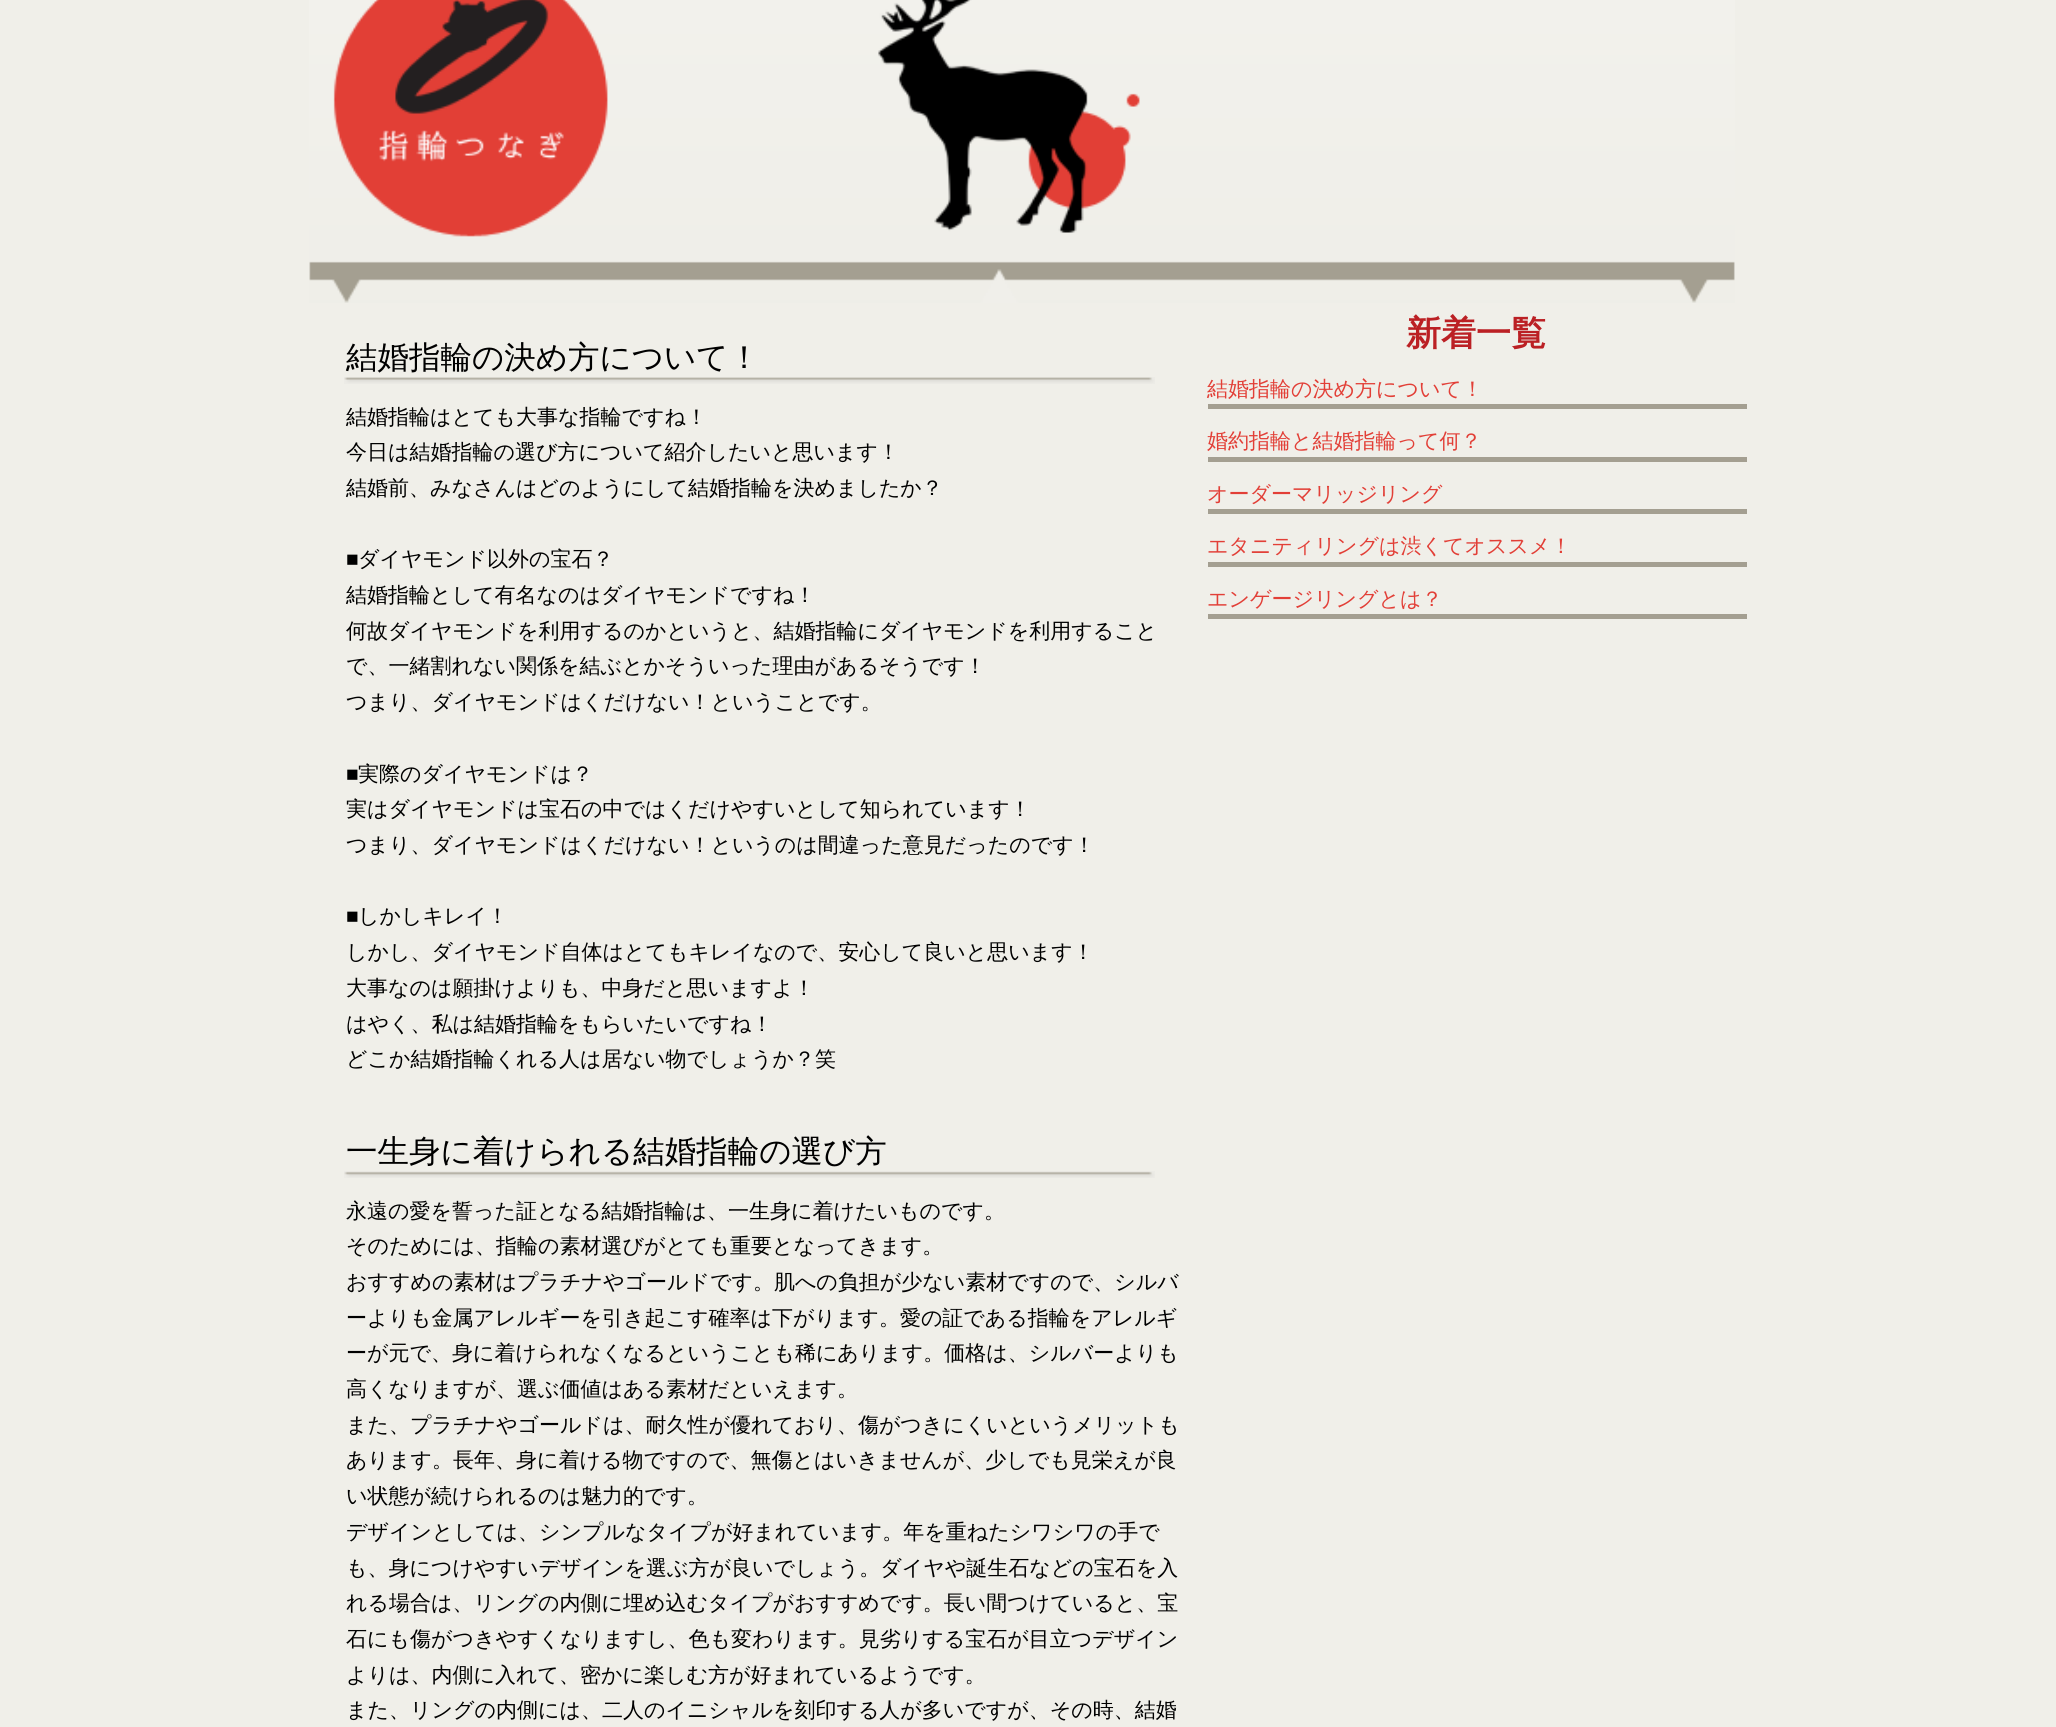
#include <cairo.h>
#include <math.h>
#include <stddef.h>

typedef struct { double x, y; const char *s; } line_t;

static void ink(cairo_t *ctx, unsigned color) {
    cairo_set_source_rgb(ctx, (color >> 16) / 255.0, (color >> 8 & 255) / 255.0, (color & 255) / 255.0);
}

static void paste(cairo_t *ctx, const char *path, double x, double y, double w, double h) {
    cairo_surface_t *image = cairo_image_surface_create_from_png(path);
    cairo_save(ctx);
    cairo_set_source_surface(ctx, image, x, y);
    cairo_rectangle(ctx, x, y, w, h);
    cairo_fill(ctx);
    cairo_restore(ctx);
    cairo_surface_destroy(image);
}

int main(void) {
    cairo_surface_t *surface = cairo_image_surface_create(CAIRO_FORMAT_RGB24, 2056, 1727);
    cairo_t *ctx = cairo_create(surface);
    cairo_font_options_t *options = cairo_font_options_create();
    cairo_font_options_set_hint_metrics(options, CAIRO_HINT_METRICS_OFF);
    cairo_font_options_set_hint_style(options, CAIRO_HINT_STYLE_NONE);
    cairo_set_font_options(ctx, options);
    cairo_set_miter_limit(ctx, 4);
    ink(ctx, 0xF0EFE9);
    cairo_paint(ctx);
    paste(ctx, "media/1.png", 309, 0, 1426, 303);
    paste(ctx, "media/2.png", 344, 377, 811, 7);
    cairo_select_font_face(ctx, "WenQuanYi Zen Hei Medium", CAIRO_FONT_SLANT_NORMAL, CAIRO_FONT_WEIGHT_NORMAL);
    cairo_set_font_size(ctx, 31.5);
    ink(ctx, 0x000000);
    cairo_move_to(ctx, 346, 368);
    cairo_show_text(ctx, "結婚指輪の決め方について！");
    cairo_set_font_size(ctx, 21);
    {
        static const line_t items[] = {
            {346, 424, "結婚指輪はとても大事な指輪ですね！"},
            {346, 459, "今日は結婚指輪の選び方について紹介したいと思います！"},
            {346, 495, "結婚前、みなさんはどのようにして結婚指輪を決めましたか？"},
        };
        for (size_t i = 0; i < sizeof items / sizeof *items; i++) {
            cairo_move_to(ctx, items[i].x, items[i].y);
            cairo_show_text(ctx, items[i].s);
        }
    }
    cairo_select_font_face(ctx, "Liberation Serif", CAIRO_FONT_SLANT_NORMAL, CAIRO_FONT_WEIGHT_NORMAL);
    cairo_move_to(ctx, 346, 566);
    cairo_show_text(ctx, "■");
    cairo_select_font_face(ctx, "WenQuanYi Zen Hei Medium", CAIRO_FONT_SLANT_NORMAL, CAIRO_FONT_WEIGHT_NORMAL);
    {
        static const line_t items[] = {
            {358, 566, "ダイヤモンド以外の宝石？"},
            {346, 602, "結婚指輪として有名なのはダイヤモンドですね！"},
            {346, 638, "何故ダイヤモンドを利用するのかというと、結婚指輪にダイヤモンドを利用すること"},
            {346, 673, "で、一緒割れない関係を結ぶとかそういった理由があるそうです！"},
            {346, 709, "つまり、ダイヤモンドはくだけない！ということです。"},
        };
        for (size_t i = 0; i < sizeof items / sizeof *items; i++) {
            cairo_move_to(ctx, items[i].x, items[i].y);
            cairo_show_text(ctx, items[i].s);
        }
    }
    cairo_select_font_face(ctx, "Liberation Serif", CAIRO_FONT_SLANT_NORMAL, CAIRO_FONT_WEIGHT_NORMAL);
    cairo_move_to(ctx, 346, 781);
    cairo_show_text(ctx, "■");
    cairo_select_font_face(ctx, "WenQuanYi Zen Hei Medium", CAIRO_FONT_SLANT_NORMAL, CAIRO_FONT_WEIGHT_NORMAL);
    {
        static const line_t items[] = {
            {358, 781, "実際のダイヤモンドは？"},
            {346, 816, "実はダイヤモンドは宝石の中ではくだけやすいとして知られています！"},
            {346, 852, "つまり、ダイヤモンドはくだけない！というのは間違った意見だったのです！"},
        };
        for (size_t i = 0; i < sizeof items / sizeof *items; i++) {
            cairo_move_to(ctx, items[i].x, items[i].y);
            cairo_show_text(ctx, items[i].s);
        }
    }
    cairo_select_font_face(ctx, "Liberation Serif", CAIRO_FONT_SLANT_NORMAL, CAIRO_FONT_WEIGHT_NORMAL);
    cairo_move_to(ctx, 346, 923);
    cairo_show_text(ctx, "■");
    cairo_select_font_face(ctx, "WenQuanYi Zen Hei Medium", CAIRO_FONT_SLANT_NORMAL, CAIRO_FONT_WEIGHT_NORMAL);
    {
        static const line_t items[] = {
            {358, 923, "しかしキレイ！"},
            {346, 959, "しかし、ダイヤモンド自体はとてもキレイなので、安心して良いと思います！"},
            {346, 995, "大事なのは願掛けよりも、中身だと思いますよ！"},
            {346, 1031, "はやく、私は結婚指輪をもらいたいですね！"},
            {346, 1066, "どこか結婚指輪くれる人は居ない物でしょうか？笑"},
        };
        for (size_t i = 0; i < sizeof items / sizeof *items; i++) {
            cairo_move_to(ctx, items[i].x, items[i].y);
            cairo_show_text(ctx, items[i].s);
        }
    }
    paste(ctx, "media/3.png", 344, 1171, 811, 7);
    cairo_set_font_size(ctx, 31.5);
    cairo_move_to(ctx, 346, 1162);
    cairo_show_text(ctx, "一生身に着けられる結婚指輪の選び方");
    cairo_set_font_size(ctx, 21);
    {
        static const line_t items[] = {
            {346, 1218, "永遠の愛を誓った証となる結婚指輪は、一生身に着けたいものです。"},
            {346, 1253, "そのためには、指輪の素材選びがとても重要となってきます。"},
            {346, 1289, "おすすめの素材はプラチナやゴールドです。肌への負担が少ない素材ですので、シルバ"},
            {346, 1325, "ーよりも金属アレルギーを引き起こす確率は下がります。愛の証である指輪をアレルギ"},
            {346, 1360, "ーが元で、身に着けられなくなるということも稀にあります。価格は、シルバーよりも"},
            {346, 1396, "高くなりますが、選ぶ価値はある素材だといえます。"},
            {346, 1432, "また、プラチナやゴールドは、耐久性が優れており、傷がつきにくいというメリットも"},
            {346, 1467, "あります。長年、身に着ける物ですので、無傷とはいきませんが、少しでも見栄えが良"},
            {346, 1503, "い状態が続けられるのは魅力的です。"},
            {346, 1539, "デザインとしては、シンプルなタイプが好まれています。年を重ねたシワシワの手で"},
            {346, 1575, "も、身につけやすいデザインを選ぶ方が良いでしょう。ダイヤや誕生石などの宝石を入"},
            {346, 1610, "れる場合は、リングの内側に埋め込むタイプがおすすめです。長い間つけていると、宝"},
            {346, 1646, "石にも傷がつきやすくなりますし、色も変わります。見劣りする宝石が目立つデザイン"},
            {346, 1682, "よりは、内側に入れて、密かに楽しむ方が好まれているようです。"},
            {346, 1717, "また、リングの内側には、二人のイニシャルを刻印する人が多いですが、その時、結婚"},
        };
        for (size_t i = 0; i < sizeof items / sizeof *items; i++) {
            cairo_move_to(ctx, items[i].x, items[i].y);
            cairo_show_text(ctx, items[i].s);
        }
    }
    cairo_select_font_face(ctx, "WenQuanYi Zen Hei", CAIRO_FONT_SLANT_NORMAL, CAIRO_FONT_WEIGHT_BOLD);
    cairo_set_font_size(ctx, 35);
    ink(ctx, 0xBB2024);
    cairo_move_to(ctx, 1406, 345);
    cairo_show_text(ctx, "新着一覧");
    ink(ctx, 0xA49F91);
    cairo_rectangle(ctx, 1208, 404, 539, 5);
    cairo_fill(ctx);
    cairo_select_font_face(ctx, "WenQuanYi Zen Hei Medium", CAIRO_FONT_SLANT_NORMAL, CAIRO_FONT_WEIGHT_NORMAL);
    cairo_set_font_size(ctx, 21);
    ink(ctx, 0xE23F37);
    cairo_move_to(ctx, 1207, 396);
    cairo_show_text(ctx, "結婚指輪の決め方について！");
    ink(ctx, 0xA49F91);
    cairo_rectangle(ctx, 1208, 457, 539, 5);
    cairo_fill(ctx);
    ink(ctx, 0xE23F37);
    cairo_move_to(ctx, 1207, 448);
    cairo_show_text(ctx, "婚約指輪と結婚指輪って何？");
    ink(ctx, 0xA49F91);
    cairo_rectangle(ctx, 1208, 509, 539, 5);
    cairo_fill(ctx);
    ink(ctx, 0xE23F37);
    cairo_move_to(ctx, 1207, 501);
    cairo_show_text(ctx, "オーダーマリッジリング");
    ink(ctx, 0xA49F91);
    cairo_rectangle(ctx, 1208, 562, 539, 5);
    cairo_fill(ctx);
    ink(ctx, 0xE23F37);
    cairo_move_to(ctx, 1207, 553);
    cairo_show_text(ctx, "エタニティリングは渋くてオススメ！");
    ink(ctx, 0xA49F91);
    cairo_rectangle(ctx, 1208, 614, 539, 5);
    cairo_fill(ctx);
    ink(ctx, 0xE23F37);
    cairo_move_to(ctx, 1207, 606);
    cairo_show_text(ctx, "エンゲージリングとは？");
    cairo_surface_write_to_png(surface, "image.png");
    cairo_font_options_destroy(options);
    cairo_destroy(ctx);
    cairo_surface_destroy(surface);
    return 0;
}
